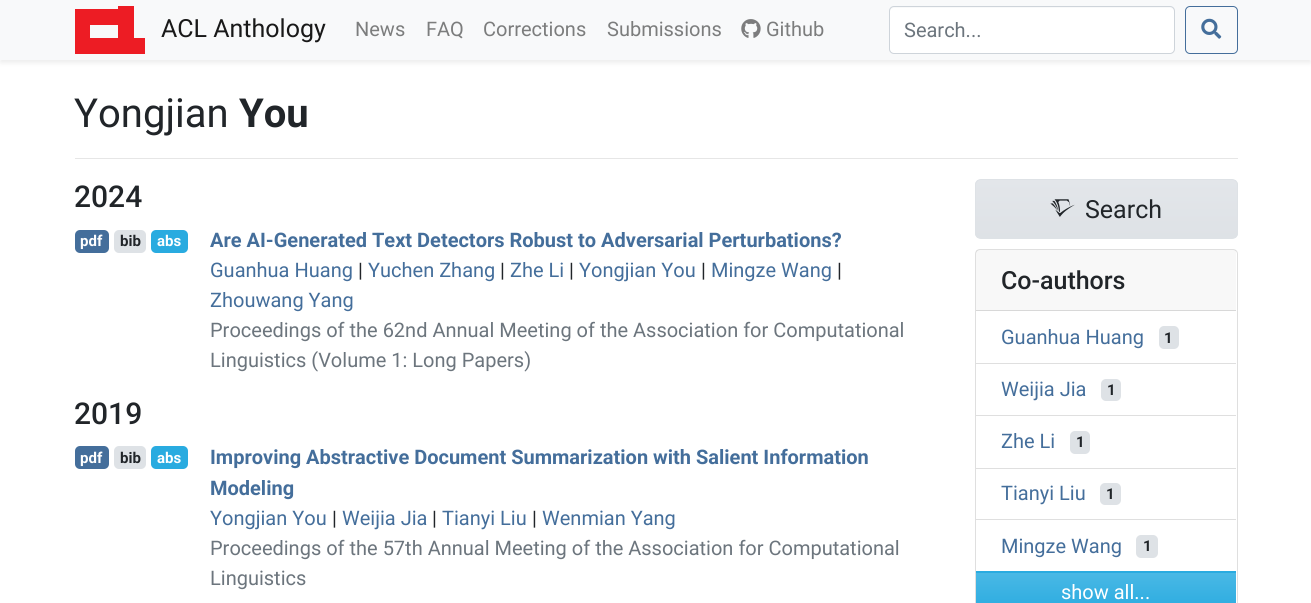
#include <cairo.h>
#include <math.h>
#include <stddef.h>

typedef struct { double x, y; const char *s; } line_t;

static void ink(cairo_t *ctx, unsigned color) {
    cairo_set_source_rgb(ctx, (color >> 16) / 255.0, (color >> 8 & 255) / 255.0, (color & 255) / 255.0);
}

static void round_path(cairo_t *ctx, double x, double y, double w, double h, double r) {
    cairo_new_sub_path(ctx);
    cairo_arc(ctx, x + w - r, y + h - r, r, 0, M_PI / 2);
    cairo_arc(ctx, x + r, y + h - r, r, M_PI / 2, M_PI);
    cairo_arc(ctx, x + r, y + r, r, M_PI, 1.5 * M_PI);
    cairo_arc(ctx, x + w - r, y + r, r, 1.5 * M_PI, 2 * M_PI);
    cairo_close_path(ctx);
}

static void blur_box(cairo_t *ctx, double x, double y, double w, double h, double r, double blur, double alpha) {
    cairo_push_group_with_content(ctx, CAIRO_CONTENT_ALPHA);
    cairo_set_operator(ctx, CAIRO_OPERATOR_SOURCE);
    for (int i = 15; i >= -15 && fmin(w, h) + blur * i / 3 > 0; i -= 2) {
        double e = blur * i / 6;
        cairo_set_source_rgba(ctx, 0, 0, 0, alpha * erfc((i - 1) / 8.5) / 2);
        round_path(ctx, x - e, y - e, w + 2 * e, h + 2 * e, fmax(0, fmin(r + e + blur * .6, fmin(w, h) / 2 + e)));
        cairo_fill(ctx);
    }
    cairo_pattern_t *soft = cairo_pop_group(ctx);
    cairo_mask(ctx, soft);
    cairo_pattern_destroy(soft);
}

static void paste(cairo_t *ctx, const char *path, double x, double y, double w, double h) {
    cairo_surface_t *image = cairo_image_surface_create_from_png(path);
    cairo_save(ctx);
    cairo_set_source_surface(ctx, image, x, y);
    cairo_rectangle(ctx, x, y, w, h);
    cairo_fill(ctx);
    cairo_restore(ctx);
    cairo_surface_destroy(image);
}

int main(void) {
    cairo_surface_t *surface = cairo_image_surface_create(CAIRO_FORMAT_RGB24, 1311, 603);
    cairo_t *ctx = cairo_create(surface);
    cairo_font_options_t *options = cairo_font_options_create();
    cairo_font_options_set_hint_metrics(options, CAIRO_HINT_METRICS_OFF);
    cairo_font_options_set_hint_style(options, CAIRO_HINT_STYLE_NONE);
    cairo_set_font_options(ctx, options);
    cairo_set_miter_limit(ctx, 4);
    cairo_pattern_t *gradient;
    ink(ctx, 0xFFFFFF);
    cairo_paint(ctx);
    ink(ctx, 0x000000);
    blur_box(ctx, 0, 3, 1311, 60, 0, 2.5, 0.07);
    ink(ctx, 0xF8F9FA);
    cairo_rectangle(ctx, 0, 0, 1311, 60);
    cairo_fill(ctx);
    ink(ctx, 0xED1C24);
    cairo_set_fill_rule(ctx, CAIRO_FILL_RULE_EVEN_ODD);
    cairo_new_path(ctx);
    cairo_move_to(ctx, 118, 6);
    cairo_line_to(ctx, 118, 9);
    cairo_line_to(ctx, 75, 9);
    cairo_line_to(ctx, 75, 54);
    cairo_line_to(ctx, 145, 54);
    cairo_line_to(ctx, 145, 38);
    cairo_line_to(ctx, 134, 38);
    cairo_line_to(ctx, 134, 6);
    cairo_close_path(ctx);
    cairo_move_to(ctx, 90, 25);
    cairo_line_to(ctx, 118, 25);
    cairo_line_to(ctx, 118, 38);
    cairo_line_to(ctx, 90, 38);
    cairo_close_path(ctx);
    cairo_fill(ctx);
    cairo_select_font_face(ctx, "Roboto", CAIRO_FONT_SLANT_NORMAL, CAIRO_FONT_WEIGHT_NORMAL);
    cairo_set_font_size(ctx, 25);
    ink(ctx, 0x191919);
    cairo_move_to(ctx, 161, 37);
    cairo_show_text(ctx, "ACL Anthology");
    cairo_set_font_size(ctx, 20);
    ink(ctx, 0x7C7D7D);
    {
        static const line_t items[] = {
            {355, 36, "News"},
            {426, 36, "FAQ"},
            {483, 36, "Corrections"},
            {607, 36, "Submissions"},
        };
        for (size_t i = 0; i < sizeof items / sizeof *items; i++) {
            cairo_move_to(ctx, items[i].x, items[i].y);
            cairo_show_text(ctx, items[i].s);
        }
    }
    paste(ctx, "media/1.png", 741, 19, 20, 19);
    cairo_move_to(ctx, 766, 36);
    cairo_show_text(ctx, "Github");
    ink(ctx, 0xFFFFFF);
    round_path(ctx, 890, 8, 284, 45, 4);
    cairo_fill(ctx);
    round_path(ctx, 889.5, 6.5, 285, 47, 4.5);
    ink(ctx, 0xCED4DA);
    cairo_set_line_width(ctx, 1);
    cairo_stroke(ctx);
    ink(ctx, 0x6C757D);
    cairo_move_to(ctx, 904, 37);
    cairo_show_text(ctx, "Search...");
    round_path(ctx, 1185.5, 6.5, 52, 47, 4.5);
    ink(ctx, 0x446E9B);
    cairo_stroke(ctx);
    paste(ctx, "media/2.png", 1201, 18, 21, 21);
    cairo_set_font_size(ctx, 40);
    ink(ctx, 0x212529);
    cairo_move_to(ctx, 74, 127);
    cairo_show_text(ctx, "Yongjian");
    cairo_select_font_face(ctx, "Roboto", CAIRO_FONT_SLANT_NORMAL, CAIRO_FONT_WEIGHT_BOLD);
    cairo_move_to(ctx, 239, 127);
    cairo_show_text(ctx, "You");
    ink(ctx, 0xE6E6E6);
    cairo_rectangle(ctx, 75, 158, 1163, 1);
    cairo_fill(ctx);
    cairo_select_font_face(ctx, "Roboto Medium", CAIRO_FONT_SLANT_NORMAL, CAIRO_FONT_WEIGHT_NORMAL);
    cairo_set_font_size(ctx, 30);
    ink(ctx, 0x212529);
    cairo_move_to(ctx, 74, 207);
    cairo_show_text(ctx, "2024");
    ink(ctx, 0x446E9B);
    round_path(ctx, 75, 230, 34, 23, 5);
    cairo_fill(ctx);
    cairo_select_font_face(ctx, "Roboto", CAIRO_FONT_SLANT_NORMAL, CAIRO_FONT_WEIGHT_BOLD);
    cairo_set_font_size(ctx, 15);
    ink(ctx, 0xFFFFFF);
    cairo_move_to(ctx, 80, 246);
    cairo_show_text(ctx, "pdf");
    ink(ctx, 0xDEE2E6);
    round_path(ctx, 114, 230, 32, 23, 5);
    cairo_fill(ctx);
    ink(ctx, 0x212529);
    cairo_move_to(ctx, 120, 246);
    cairo_show_text(ctx, "bib");
    ink(ctx, 0x29ABE0);
    round_path(ctx, 151, 230, 37, 23, 5);
    cairo_fill(ctx);
    ink(ctx, 0xFFFFFF);
    cairo_move_to(ctx, 157, 246);
    cairo_show_text(ctx, "abs");
    cairo_set_font_size(ctx, 20);
    ink(ctx, 0x446E9B);
    cairo_move_to(ctx, 210, 247);
    cairo_show_text(ctx, "Are AI-Generated Text Detectors Robust to Adversarial Perturbations?");
    cairo_select_font_face(ctx, "Roboto", CAIRO_FONT_SLANT_NORMAL, CAIRO_FONT_WEIGHT_NORMAL);
    cairo_move_to(ctx, 210, 277);
    cairo_show_text(ctx, "Guanhua Huang");
    ink(ctx, 0x212529);
    cairo_move_to(ctx, 358, 277);
    cairo_show_text(ctx, "|");
    ink(ctx, 0x446E9B);
    cairo_move_to(ctx, 368, 277);
    cairo_show_text(ctx, "Yuchen Zhang");
    ink(ctx, 0x212529);
    cairo_move_to(ctx, 500, 277);
    cairo_show_text(ctx, "|");
    ink(ctx, 0x446E9B);
    cairo_move_to(ctx, 510, 277);
    cairo_show_text(ctx, "Zhe Li");
    ink(ctx, 0x212529);
    cairo_move_to(ctx, 569, 277);
    cairo_show_text(ctx, "|");
    ink(ctx, 0x446E9B);
    cairo_move_to(ctx, 579, 277);
    cairo_show_text(ctx, "Yongjian You");
    ink(ctx, 0x212529);
    cairo_move_to(ctx, 701, 277);
    cairo_show_text(ctx, "|");
    ink(ctx, 0x446E9B);
    cairo_move_to(ctx, 711, 277);
    cairo_show_text(ctx, "Mingze Wang");
    ink(ctx, 0x212529);
    cairo_move_to(ctx, 837, 277);
    cairo_show_text(ctx, "|");
    ink(ctx, 0x446E9B);
    cairo_move_to(ctx, 210, 307);
    cairo_show_text(ctx, "Zhouwang Yang");
    ink(ctx, 0x6C757D);
    cairo_move_to(ctx, 210, 337);
    cairo_show_text(ctx, "Proceedings of the 62nd Annual Meeting of the Association for Computational");
    cairo_move_to(ctx, 210, 367);
    cairo_show_text(ctx, "Linguistics (Volume 1: Long Papers)");
    cairo_select_font_face(ctx, "Roboto Medium", CAIRO_FONT_SLANT_NORMAL, CAIRO_FONT_WEIGHT_NORMAL);
    cairo_set_font_size(ctx, 30);
    ink(ctx, 0x212529);
    cairo_move_to(ctx, 74, 424);
    cairo_show_text(ctx, "2019");
    ink(ctx, 0x446E9B);
    round_path(ctx, 75, 446, 34, 23, 5);
    cairo_fill(ctx);
    cairo_select_font_face(ctx, "Roboto", CAIRO_FONT_SLANT_NORMAL, CAIRO_FONT_WEIGHT_BOLD);
    cairo_set_font_size(ctx, 15);
    ink(ctx, 0xFFFFFF);
    cairo_move_to(ctx, 80, 463);
    cairo_show_text(ctx, "pdf");
    ink(ctx, 0xDEE2E6);
    round_path(ctx, 114, 446, 32, 23, 5);
    cairo_fill(ctx);
    ink(ctx, 0x212529);
    cairo_move_to(ctx, 120, 463);
    cairo_show_text(ctx, "bib");
    ink(ctx, 0x29ABE0);
    round_path(ctx, 151, 446, 37, 23, 5);
    cairo_fill(ctx);
    ink(ctx, 0xFFFFFF);
    cairo_move_to(ctx, 157, 463);
    cairo_show_text(ctx, "abs");
    cairo_set_font_size(ctx, 20);
    ink(ctx, 0x446E9B);
    cairo_move_to(ctx, 210, 464);
    cairo_show_text(ctx, "Improving Abstractive Document Summarization with Salient Information");
    cairo_move_to(ctx, 210, 495);
    cairo_show_text(ctx, "Modeling");
    cairo_select_font_face(ctx, "Roboto", CAIRO_FONT_SLANT_NORMAL, CAIRO_FONT_WEIGHT_NORMAL);
    cairo_move_to(ctx, 210, 525);
    cairo_show_text(ctx, "Yongjian You");
    ink(ctx, 0x212529);
    cairo_move_to(ctx, 332, 525);
    cairo_show_text(ctx, "|");
    ink(ctx, 0x446E9B);
    cairo_move_to(ctx, 342, 525);
    cairo_show_text(ctx, "Weijia Jia");
    ink(ctx, 0x212529);
    cairo_move_to(ctx, 432, 525);
    cairo_show_text(ctx, "|");
    ink(ctx, 0x446E9B);
    cairo_move_to(ctx, 442, 525);
    cairo_show_text(ctx, "Tianyi Liu");
    ink(ctx, 0x212529);
    cairo_move_to(ctx, 532, 525);
    cairo_show_text(ctx, "|");
    ink(ctx, 0x446E9B);
    cairo_move_to(ctx, 542, 525);
    cairo_show_text(ctx, "Wenmian Yang");
    ink(ctx, 0x6C757D);
    cairo_move_to(ctx, 210, 555);
    cairo_show_text(ctx, "Proceedings of the 57th Annual Meeting of the Association for Computational");
    cairo_move_to(ctx, 210, 585);
    cairo_show_text(ctx, "Linguistics");
    cairo_save(ctx);
    cairo_set_fill_rule(ctx, CAIRO_FILL_RULE_WINDING);
    round_path(ctx, 975, 179, 263, 60, 6);
    cairo_clip(ctx);
    gradient = cairo_pattern_create_linear(1106, 180, 1106, 238);
    cairo_pattern_add_color_stop_rgba(gradient, 0, 0.89, 0.902, 0.918, 1);
    cairo_pattern_add_color_stop_rgba(gradient, 1, 0.871, 0.886, 0.902, 1);
    cairo_set_source(ctx, gradient);
    cairo_pattern_destroy(gradient);
    cairo_rectangle(ctx, 975, 180, 263, 58);
    cairo_fill(ctx);
    cairo_restore(ctx);
    round_path(ctx, 975.5, 179.5, 262, 59, 5.5);
    ink(ctx, 0xDEE2E6);
    cairo_stroke(ctx);
    paste(ctx, "media/3.png", 1050, 199, 25, 18);
    cairo_set_font_size(ctx, 25);
    ink(ctx, 0x212529);
    cairo_move_to(ctx, 1085, 218);
    cairo_show_text(ctx, "Search");
    round_path(ctx, 975.5, 249.5, 262, 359, 4.5);
    ink(ctx, 0xDFDFDF);
    cairo_stroke(ctx);
    cairo_set_source_rgba(ctx, 0, 0, 0, 0.03);
    cairo_rectangle(ctx, 976, 250, 260, 60);
    cairo_fill(ctx);
    ink(ctx, 0xD8D8D8);
    cairo_rectangle(ctx, 976, 310, 260, 1);
    cairo_fill(ctx);
    cairo_select_font_face(ctx, "Roboto Medium", CAIRO_FONT_SLANT_NORMAL, CAIRO_FONT_WEIGHT_NORMAL);
    ink(ctx, 0x212529);
    cairo_move_to(ctx, 1001, 289);
    cairo_show_text(ctx, "Co-authors");
    cairo_select_font_face(ctx, "Roboto", CAIRO_FONT_SLANT_NORMAL, CAIRO_FONT_WEIGHT_NORMAL);
    cairo_set_font_size(ctx, 20);
    ink(ctx, 0x446E9B);
    cairo_move_to(ctx, 1001, 344);
    cairo_show_text(ctx, "Guanhua Huang");
    ink(ctx, 0xDEE2E6);
    round_path(ctx, 1159, 326, 20, 23, 5);
    cairo_fill(ctx);
    cairo_select_font_face(ctx, "Roboto", CAIRO_FONT_SLANT_NORMAL, CAIRO_FONT_WEIGHT_BOLD);
    cairo_set_font_size(ctx, 15);
    ink(ctx, 0x212529);
    cairo_move_to(ctx, 1164, 343);
    cairo_show_text(ctx, "1");
    ink(ctx, 0xDFDFDF);
    cairo_rectangle(ctx, 976, 363, 260, 1);
    cairo_fill(ctx);
    cairo_select_font_face(ctx, "Roboto", CAIRO_FONT_SLANT_NORMAL, CAIRO_FONT_WEIGHT_NORMAL);
    cairo_set_font_size(ctx, 20);
    ink(ctx, 0x446E9B);
    cairo_move_to(ctx, 1001, 396);
    cairo_show_text(ctx, "Weijia Jia");
    ink(ctx, 0xDEE2E6);
    round_path(ctx, 1101, 379, 20, 22, 5);
    cairo_fill(ctx);
    cairo_select_font_face(ctx, "Roboto", CAIRO_FONT_SLANT_NORMAL, CAIRO_FONT_WEIGHT_BOLD);
    cairo_set_font_size(ctx, 15);
    ink(ctx, 0x212529);
    cairo_move_to(ctx, 1107, 395);
    cairo_show_text(ctx, "1");
    ink(ctx, 0xDFDFDF);
    cairo_rectangle(ctx, 976, 415, 260, 1);
    cairo_fill(ctx);
    cairo_select_font_face(ctx, "Roboto", CAIRO_FONT_SLANT_NORMAL, CAIRO_FONT_WEIGHT_NORMAL);
    cairo_set_font_size(ctx, 20);
    ink(ctx, 0x446E9B);
    cairo_move_to(ctx, 1001, 448);
    cairo_show_text(ctx, "Zhe Li");
    ink(ctx, 0xDEE2E6);
    round_path(ctx, 1070, 431, 20, 23, 5);
    cairo_fill(ctx);
    cairo_select_font_face(ctx, "Roboto", CAIRO_FONT_SLANT_NORMAL, CAIRO_FONT_WEIGHT_BOLD);
    cairo_set_font_size(ctx, 15);
    ink(ctx, 0x212529);
    cairo_move_to(ctx, 1076, 447);
    cairo_show_text(ctx, "1");
    ink(ctx, 0xDFDFDF);
    cairo_rectangle(ctx, 976, 468, 260, 1);
    cairo_fill(ctx);
    cairo_select_font_face(ctx, "Roboto", CAIRO_FONT_SLANT_NORMAL, CAIRO_FONT_WEIGHT_NORMAL);
    cairo_set_font_size(ctx, 20);
    ink(ctx, 0x446E9B);
    cairo_move_to(ctx, 1001, 500);
    cairo_show_text(ctx, "Tianyi Liu");
    ink(ctx, 0xDEE2E6);
    round_path(ctx, 1100, 483, 21, 22, 5);
    cairo_fill(ctx);
    cairo_select_font_face(ctx, "Roboto", CAIRO_FONT_SLANT_NORMAL, CAIRO_FONT_WEIGHT_BOLD);
    cairo_set_font_size(ctx, 15);
    ink(ctx, 0x212529);
    cairo_move_to(ctx, 1106, 499);
    cairo_show_text(ctx, "1");
    ink(ctx, 0xDFDFDF);
    cairo_rectangle(ctx, 976, 519, 260, 1);
    cairo_fill(ctx);
    cairo_select_font_face(ctx, "Roboto", CAIRO_FONT_SLANT_NORMAL, CAIRO_FONT_WEIGHT_NORMAL);
    cairo_set_font_size(ctx, 20);
    ink(ctx, 0x446E9B);
    cairo_move_to(ctx, 1001, 553);
    cairo_show_text(ctx, "Mingze Wang");
    ink(ctx, 0xDEE2E6);
    round_path(ctx, 1136, 535, 22, 23, 5);
    cairo_fill(ctx);
    cairo_select_font_face(ctx, "Roboto", CAIRO_FONT_SLANT_NORMAL, CAIRO_FONT_WEIGHT_BOLD);
    cairo_set_font_size(ctx, 15);
    ink(ctx, 0x212529);
    cairo_move_to(ctx, 1143, 551);
    cairo_show_text(ctx, "1");
    ink(ctx, 0x29ABE0);
    cairo_rectangle(ctx, 976, 571, 260, 2);
    cairo_fill(ctx);
    gradient = cairo_pattern_create_linear(1106, 573, 1106, 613);
    cairo_pattern_add_color_stop_rgba(gradient, 0, 0.286, 0.722, 0.898, 1);
    cairo_pattern_add_color_stop_rgba(gradient, 1, 0.161, 0.671, 0.878, 1);
    cairo_set_source(ctx, gradient);
    cairo_pattern_destroy(gradient);
    cairo_rectangle(ctx, 976, 573, 260, 30);
    cairo_fill(ctx);
    cairo_select_font_face(ctx, "Roboto", CAIRO_FONT_SLANT_NORMAL, CAIRO_FONT_WEIGHT_NORMAL);
    cairo_set_font_size(ctx, 20);
    ink(ctx, 0xFFFFFF);
    cairo_move_to(ctx, 1061, 599);
    cairo_show_text(ctx, "show all...");
    cairo_surface_write_to_png(surface, "image.png");
    cairo_font_options_destroy(options);
    cairo_destroy(ctx);
    cairo_surface_destroy(surface);
    return 0;
}
